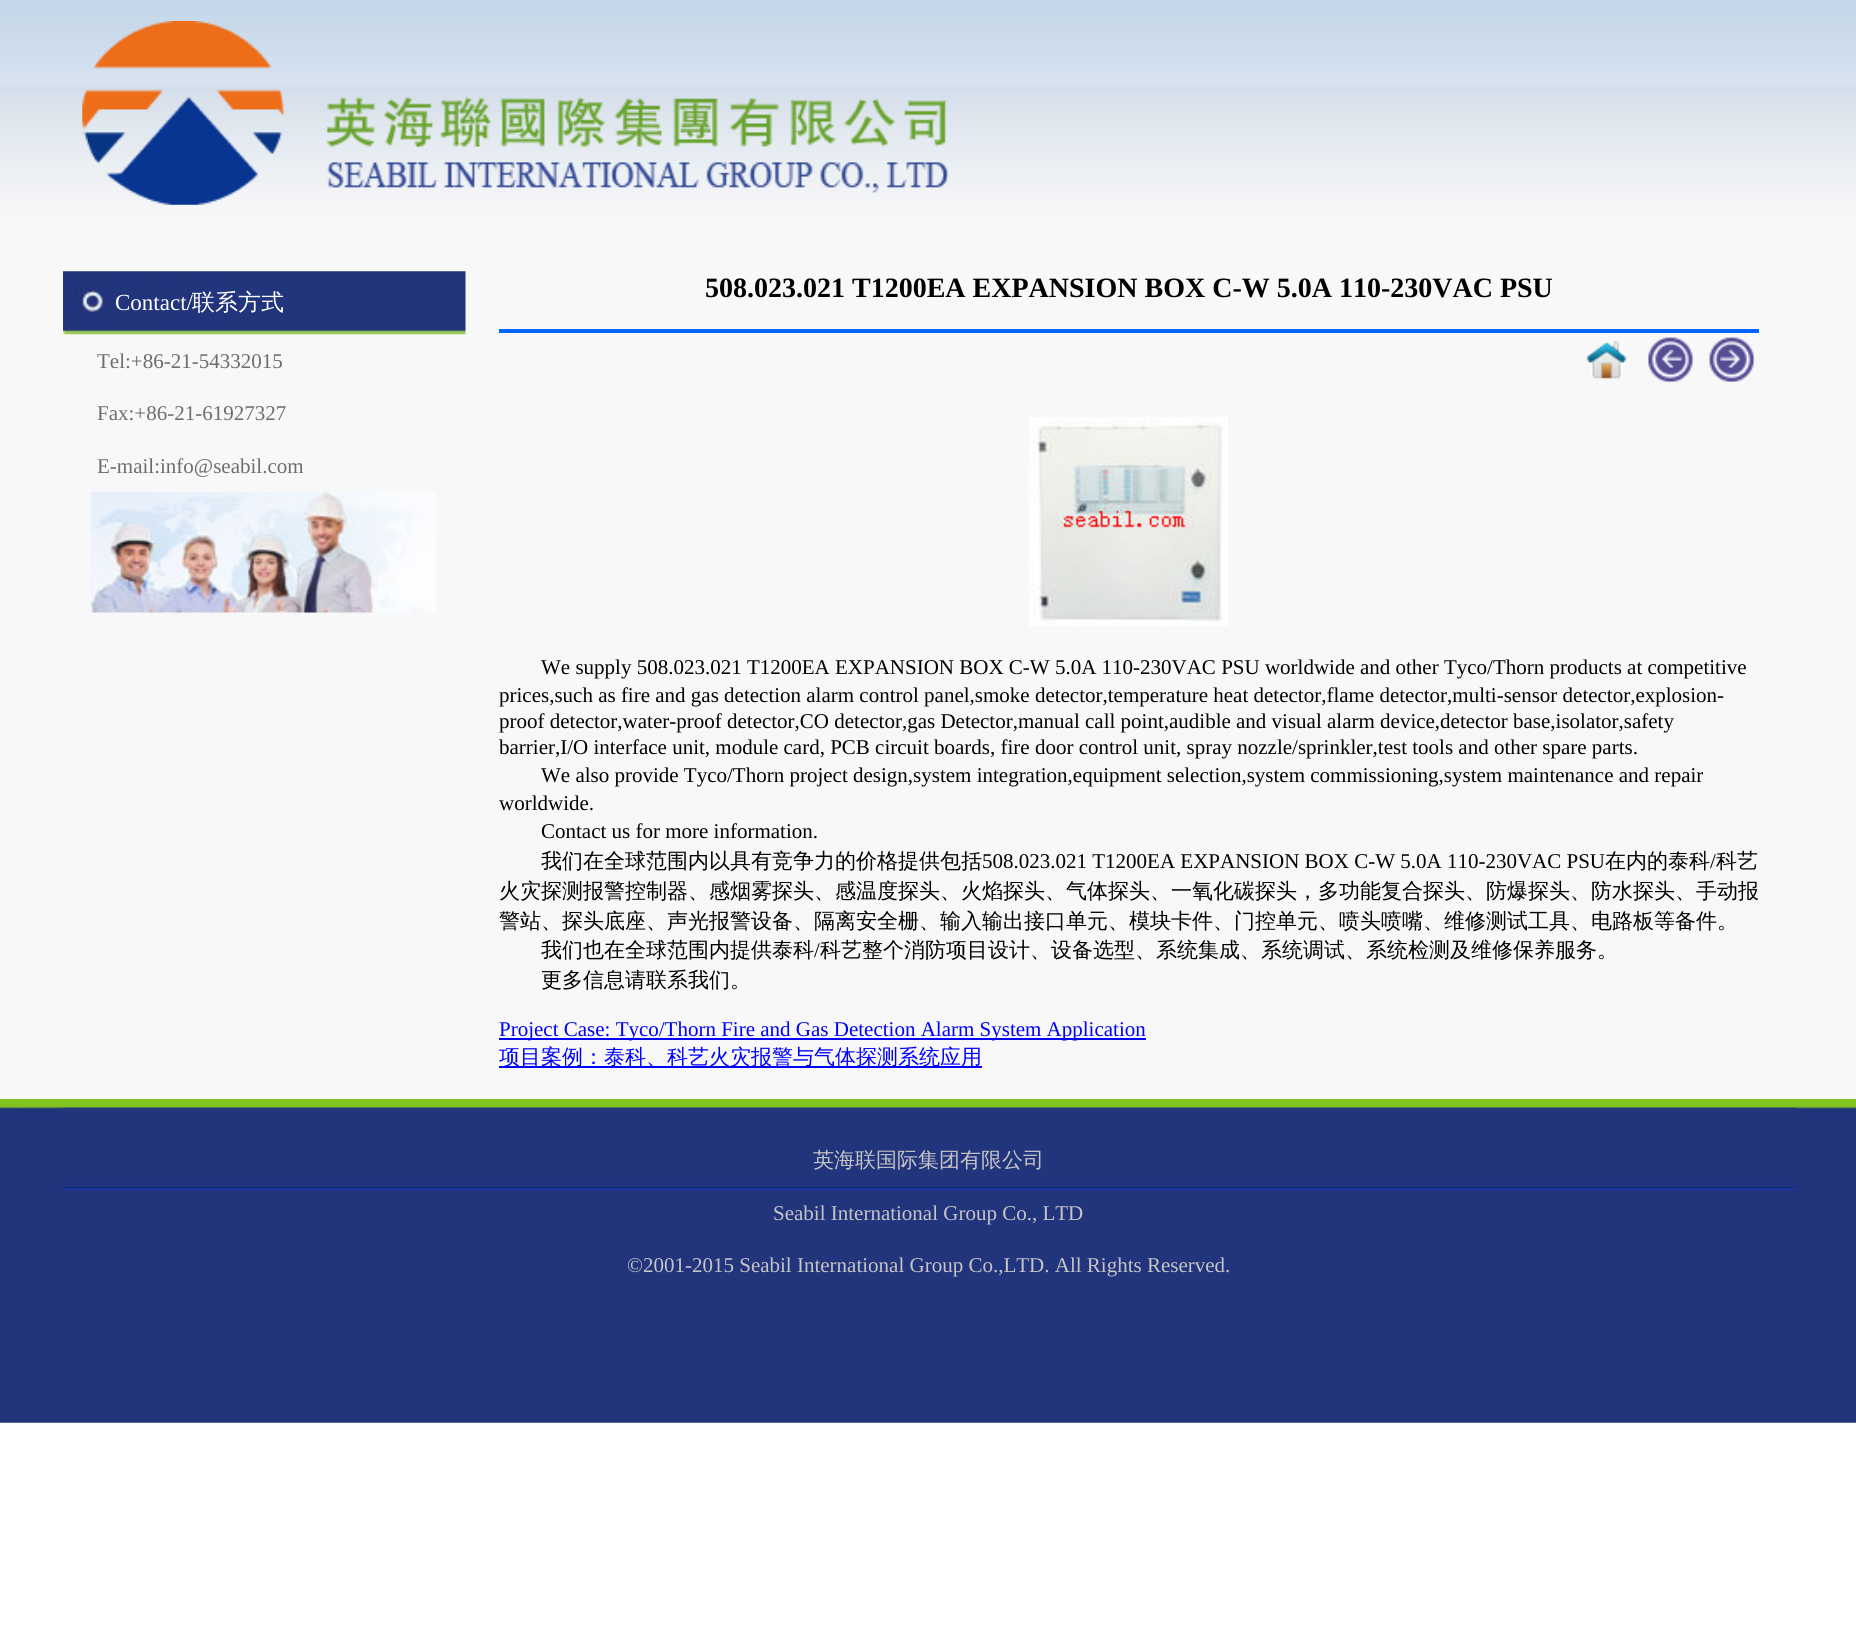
#include <cairo.h>
#include <math.h>
#include <stddef.h>

typedef struct { double x, y; const char *s; } line_t;

static void ink(cairo_t *ctx, unsigned color) {
    cairo_set_source_rgb(ctx, (color >> 16) / 255.0, (color >> 8 & 255) / 255.0, (color & 255) / 255.0);
}

static void paste(cairo_t *ctx, const char *path, double x, double y, double w, double h) {
    cairo_surface_t *image = cairo_image_surface_create_from_png(path);
    cairo_save(ctx);
    cairo_set_source_surface(ctx, image, x, y);
    cairo_rectangle(ctx, x, y, w, h);
    cairo_fill(ctx);
    cairo_restore(ctx);
    cairo_surface_destroy(image);
}

int main(void) {
    cairo_surface_t *surface = cairo_image_surface_create(CAIRO_FORMAT_RGB24, 1856, 1633);
    cairo_t *ctx = cairo_create(surface);
    cairo_font_options_t *options = cairo_font_options_create();
    cairo_font_options_set_hint_metrics(options, CAIRO_HINT_METRICS_OFF);
    cairo_font_options_set_hint_style(options, CAIRO_HINT_STYLE_NONE);
    cairo_set_font_options(ctx, options);
    cairo_set_miter_limit(ctx, 4);
    ink(ctx, 0xFFFFFF);
    cairo_paint(ctx);
    paste(ctx, "media/1.png", 0, 0, 1856, 226);
    paste(ctx, "media/2.png", 82, 21, 867, 184);
    ink(ctx, 0xF8F8F8);
    cairo_rectangle(ctx, 0, 226, 1856, 873);
    cairo_fill(ctx);
    paste(ctx, "media/3.png", 63, 271, 403, 64);
    cairo_select_font_face(ctx, "Liberation Serif", CAIRO_FONT_SLANT_NORMAL, CAIRO_FONT_WEIGHT_NORMAL);
    cairo_set_font_size(ctx, 23);
    ink(ctx, 0xFFFFFF);
    cairo_move_to(ctx, 115, 310);
    cairo_show_text(ctx, "Contact/");
    cairo_select_font_face(ctx, "WenQuanYi Zen Hei Medium", CAIRO_FONT_SLANT_NORMAL, CAIRO_FONT_WEIGHT_NORMAL);
    cairo_move_to(ctx, 192, 310);
    cairo_show_text(ctx, "联系方式");
    cairo_select_font_face(ctx, "Liberation Serif", CAIRO_FONT_SLANT_NORMAL, CAIRO_FONT_WEIGHT_NORMAL);
    cairo_set_font_size(ctx, 21);
    ink(ctx, 0x6D6D6D);
    {
        static const line_t items[] = {
            {97, 368, "Tel:+86-21-54332015"},
            {97, 420, "Fax:+86-21-61927327"},
            {97, 473, "E-mail:info@seabil.com"},
        };
        for (size_t i = 0; i < sizeof items / sizeof *items; i++) {
            cairo_move_to(ctx, items[i].x, items[i].y);
            cairo_show_text(ctx, items[i].s);
        }
    }
    paste(ctx, "media/4.png", 91, 491, 345, 122);
    ink(ctx, 0x0066FF);
    cairo_rectangle(ctx, 499, 329, 1260, 4);
    cairo_fill(ctx);
    cairo_select_font_face(ctx, "Liberation Serif", CAIRO_FONT_SLANT_NORMAL, CAIRO_FONT_WEIGHT_BOLD);
    cairo_set_font_size(ctx, 28);
    ink(ctx, 0x000000);
    cairo_move_to(ctx, 705, 297);
    cairo_show_text(ctx, "508.023.021 T1200EA EXPANSION BOX C-W 5.0A 110-230VAC PSU");
    paste(ctx, "media/5.png", 1586, 341, 41, 39);
    paste(ctx, "media/6.png", 1647, 336, 47, 47);
    paste(ctx, "media/7.png", 1708, 336, 48, 47);
    paste(ctx, "media/8.png", 1029, 417, 199, 209);
    cairo_select_font_face(ctx, "Liberation Serif", CAIRO_FONT_SLANT_NORMAL, CAIRO_FONT_WEIGHT_NORMAL);
    cairo_set_font_size(ctx, 21);
    {
        static const line_t items[] = {
            {541, 674, "We supply 508.023.021 T1200EA EXPANSION BOX C-W 5.0A 110-230VAC PSU worldwide and other Tyco/Thorn products at competitive"},
            {499, 702, "prices,such as fire and gas detection alarm control panel,smoke detector,temperature heat detector,flame detector,multi-sensor detector,explosion-"},
            {499, 728, "proof detector,water-proof detector,CO detector,gas Detector,manual call point,audible and visual alarm device,detector base,isolator,safety"},
            {499, 754, "barrier,I/O interface unit, module card, PCB circuit boards, fire door control unit, spray nozzle/sprinkler,test tools and other spare parts."},
            {541, 782, "We also provide Tyco/Thorn project design,system integration,equipment selection,system commissioning,system maintenance and repair"},
            {499, 810, "worldwide."},
            {541, 838, "Contact us for more information."},
        };
        for (size_t i = 0; i < sizeof items / sizeof *items; i++) {
            cairo_move_to(ctx, items[i].x, items[i].y);
            cairo_show_text(ctx, items[i].s);
        }
    }
    cairo_select_font_face(ctx, "WenQuanYi Zen Hei Medium", CAIRO_FONT_SLANT_NORMAL, CAIRO_FONT_WEIGHT_NORMAL);
    cairo_move_to(ctx, 541, 868);
    cairo_show_text(ctx, "我们在全球范围内以具有竞争力的价格提供包括");
    cairo_select_font_face(ctx, "Liberation Serif", CAIRO_FONT_SLANT_NORMAL, CAIRO_FONT_WEIGHT_NORMAL);
    cairo_move_to(ctx, 982, 868);
    cairo_show_text(ctx, "508.023.021 T1200EA EXPANSION BOX C-W 5.0A 110-230VAC PSU");
    cairo_select_font_face(ctx, "WenQuanYi Zen Hei Medium", CAIRO_FONT_SLANT_NORMAL, CAIRO_FONT_WEIGHT_NORMAL);
    cairo_move_to(ctx, 1605, 868);
    cairo_show_text(ctx, "在内的泰科");
    cairo_select_font_face(ctx, "Liberation Serif", CAIRO_FONT_SLANT_NORMAL, CAIRO_FONT_WEIGHT_NORMAL);
    cairo_move_to(ctx, 1710, 868);
    cairo_show_text(ctx, "/");
    cairo_select_font_face(ctx, "WenQuanYi Zen Hei Medium", CAIRO_FONT_SLANT_NORMAL, CAIRO_FONT_WEIGHT_NORMAL);
    {
        static const line_t items[] = {
            {1716, 868, "科艺"},
            {499, 898, "火灾探测报警控制器、感烟雾探头、感温度探头、火焰探头、气体探头、一氧化碳探头，多功能复合探头、防爆探头、防水探头、手动报"},
            {499, 928, "警站、探头底座、声光报警设备、隔离安全栅、输入输出接口单元、模块卡件、门控单元、喷头喷嘴、维修测试工具、电路板等备件。"},
            {541, 957, "我们也在全球范围内提供泰科"},
        };
        for (size_t i = 0; i < sizeof items / sizeof *items; i++) {
            cairo_move_to(ctx, items[i].x, items[i].y);
            cairo_show_text(ctx, items[i].s);
        }
    }
    cairo_select_font_face(ctx, "Liberation Serif", CAIRO_FONT_SLANT_NORMAL, CAIRO_FONT_WEIGHT_NORMAL);
    cairo_move_to(ctx, 814, 957);
    cairo_show_text(ctx, "/");
    cairo_select_font_face(ctx, "WenQuanYi Zen Hei Medium", CAIRO_FONT_SLANT_NORMAL, CAIRO_FONT_WEIGHT_NORMAL);
    cairo_move_to(ctx, 820, 957);
    cairo_show_text(ctx, "科艺整个消防项目设计、设备选型、系统集成、系统调试、系统检测及维修保养服务。");
    cairo_move_to(ctx, 541, 987);
    cairo_show_text(ctx, "更多信息请联系我们。");
    ink(ctx, 0x0000FF);
    cairo_rectangle(ctx, 499, 1038, 647, 2);
    cairo_fill(ctx);
    cairo_select_font_face(ctx, "Liberation Serif", CAIRO_FONT_SLANT_NORMAL, CAIRO_FONT_WEIGHT_NORMAL);
    cairo_move_to(ctx, 499, 1036);
    cairo_show_text(ctx, "Project Case: Tyco/Thorn Fire and Gas Detection Alarm System Application");
    cairo_rectangle(ctx, 499, 1066, 483, 2);
    cairo_fill(ctx);
    cairo_select_font_face(ctx, "WenQuanYi Zen Hei Medium", CAIRO_FONT_SLANT_NORMAL, CAIRO_FONT_WEIGHT_NORMAL);
    cairo_move_to(ctx, 499, 1064);
    cairo_show_text(ctx, "项目案例：泰科、科艺火灾报警与气体探测系统应用");
    paste(ctx, "media/9.png", 0, 1099, 1856, 324);
    paste(ctx, "media/10.png", 63, 1107, 1733, 83);
    ink(ctx, 0xC5C5C5);
    cairo_move_to(ctx, 813, 1167);
    cairo_show_text(ctx, "英海联国际集团有限公司");
    cairo_select_font_face(ctx, "Liberation Serif", CAIRO_FONT_SLANT_NORMAL, CAIRO_FONT_WEIGHT_NORMAL);
    cairo_move_to(ctx, 773, 1220);
    cairo_show_text(ctx, "Seabil International Group Co., LTD");
    cairo_move_to(ctx, 627, 1272);
    cairo_show_text(ctx, "©2001-2015 Seabil International Group Co.,LTD. All Rights Reserved.");
    cairo_surface_write_to_png(surface, "image.png");
    cairo_font_options_destroy(options);
    cairo_destroy(ctx);
    cairo_surface_destroy(surface);
    return 0;
}
